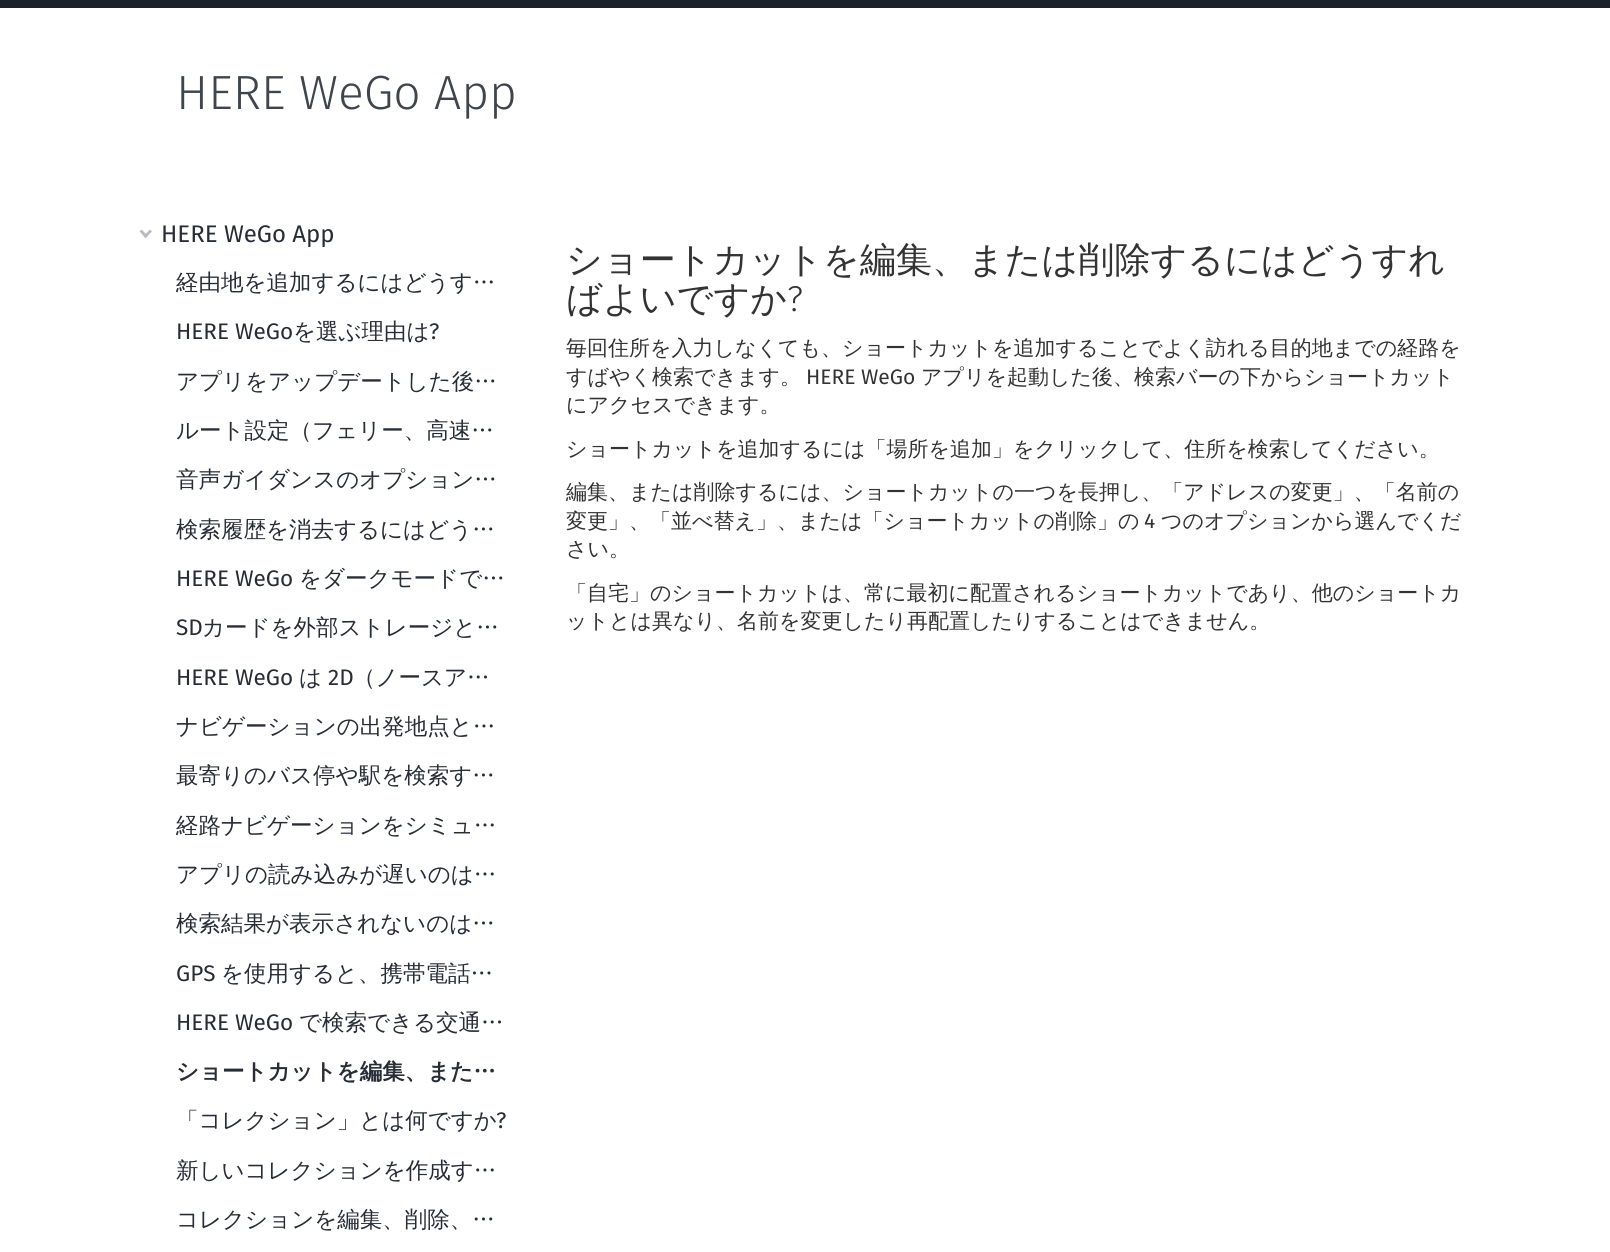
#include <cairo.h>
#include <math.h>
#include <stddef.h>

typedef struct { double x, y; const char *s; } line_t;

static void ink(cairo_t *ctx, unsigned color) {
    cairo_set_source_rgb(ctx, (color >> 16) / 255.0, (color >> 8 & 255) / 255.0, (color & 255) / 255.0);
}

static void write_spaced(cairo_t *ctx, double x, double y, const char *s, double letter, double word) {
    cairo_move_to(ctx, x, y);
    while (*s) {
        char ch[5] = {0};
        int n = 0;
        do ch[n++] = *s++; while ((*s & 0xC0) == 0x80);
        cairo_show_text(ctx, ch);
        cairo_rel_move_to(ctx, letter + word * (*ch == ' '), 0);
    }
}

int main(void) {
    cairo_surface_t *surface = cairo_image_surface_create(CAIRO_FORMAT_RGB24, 1610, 1252);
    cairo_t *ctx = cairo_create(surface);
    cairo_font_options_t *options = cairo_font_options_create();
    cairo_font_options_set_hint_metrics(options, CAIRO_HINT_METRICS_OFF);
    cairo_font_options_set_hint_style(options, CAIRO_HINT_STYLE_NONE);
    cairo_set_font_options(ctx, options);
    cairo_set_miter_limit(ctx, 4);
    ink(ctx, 0xFFFFFF);
    cairo_paint(ctx);
    ink(ctx, 0x1B222C);
    cairo_rectangle(ctx, 0, 0, 1610, 8);
    cairo_fill(ctx);
    cairo_select_font_face(ctx, "Fira Sans Light", CAIRO_FONT_SLANT_NORMAL, CAIRO_FONT_WEIGHT_NORMAL);
    cairo_set_font_size(ctx, 48);
    ink(ctx, 0x3F454D);
    cairo_move_to(ctx, 176, 109);
    cairo_show_text(ctx, "HERE WeGo App");
    ink(ctx, 0xBABCC4);
    cairo_new_path(ctx);
    cairo_move_to(ctx, 152, 231.5);
    cairo_line_to(ctx, 145.5, 238);
    cairo_line_to(ctx, 143.5, 236);
    cairo_line_to(ctx, 150, 229.5);
    cairo_close_path(ctx);
    cairo_fill(ctx);
    cairo_new_path(ctx);
    cairo_move_to(ctx, 148, 236);
    cairo_line_to(ctx, 145.5, 238);
    cairo_line_to(ctx, 139.5, 231.5);
    cairo_line_to(ctx, 141.5, 229.5);
    cairo_close_path(ctx);
    cairo_fill(ctx);
    cairo_select_font_face(ctx, "Fira Sans", CAIRO_FONT_SLANT_NORMAL, CAIRO_FONT_WEIGHT_NORMAL);
    cairo_set_font_size(ctx, 24);
    ink(ctx, 0x272D37);
    cairo_move_to(ctx, 161, 242);
    cairo_show_text(ctx, "HERE WeGo App");
    cairo_save(ctx);
    cairo_rectangle(ctx, 176, 267, 333, 33);
    cairo_clip(ctx);
    cairo_select_font_face(ctx, "WenQuanYi Zen Hei Medium", CAIRO_FONT_SLANT_NORMAL, CAIRO_FONT_WEIGHT_NORMAL);
    cairo_set_font_size(ctx, 22.5);
    cairo_move_to(ctx, 176, 290);
    cairo_show_text(ctx, "経由地を追加するにはどうす…");
    cairo_restore(ctx);
    cairo_set_font_size(ctx, 22.5);
    cairo_move_to(ctx, 176, 339);
    cairo_show_text(ctx, "HERE WeGo");
    cairo_select_font_face(ctx, "WenQuanYi Zen Hei Medium", CAIRO_FONT_SLANT_NORMAL, CAIRO_FONT_WEIGHT_NORMAL);
    cairo_move_to(ctx, 293, 339);
    cairo_show_text(ctx, "を選ぶ理由は");
    cairo_select_font_face(ctx, "Fira Sans", CAIRO_FONT_SLANT_NORMAL, CAIRO_FONT_WEIGHT_NORMAL);
    cairo_move_to(ctx, 429, 339);
    cairo_show_text(ctx, "?");
    cairo_select_font_face(ctx, "WenQuanYi Zen Hei Medium", CAIRO_FONT_SLANT_NORMAL, CAIRO_FONT_WEIGHT_NORMAL);
    {
        static const line_t items[] = {
            {176, 389, "アプリをアップデートした後…"},
            {176, 438, "ルート設定（フェリー、高速…"},
            {176, 487, "音声ガイダンスのオプション…"},
            {176, 537, "検索履歴を消去するにはどう…"},
        };
        for (size_t i = 0; i < sizeof items / sizeof *items; i++) {
            cairo_move_to(ctx, items[i].x, items[i].y);
            cairo_show_text(ctx, items[i].s);
        }
    }
    cairo_select_font_face(ctx, "Fira Sans", CAIRO_FONT_SLANT_NORMAL, CAIRO_FONT_WEIGHT_NORMAL);
    cairo_move_to(ctx, 176, 586);
    cairo_show_text(ctx, "HERE WeGo");
    cairo_select_font_face(ctx, "WenQuanYi Zen Hei Medium", CAIRO_FONT_SLANT_NORMAL, CAIRO_FONT_WEIGHT_NORMAL);
    cairo_move_to(ctx, 299, 586);
    cairo_show_text(ctx, "をダークモードで…");
    cairo_select_font_face(ctx, "Fira Sans", CAIRO_FONT_SLANT_NORMAL, CAIRO_FONT_WEIGHT_NORMAL);
    cairo_move_to(ctx, 176, 635);
    cairo_show_text(ctx, "SD");
    cairo_select_font_face(ctx, "WenQuanYi Zen Hei Medium", CAIRO_FONT_SLANT_NORMAL, CAIRO_FONT_WEIGHT_NORMAL);
    cairo_move_to(ctx, 202, 635);
    cairo_show_text(ctx, "カードを外部ストレージと…");
    cairo_select_font_face(ctx, "Fira Sans", CAIRO_FONT_SLANT_NORMAL, CAIRO_FONT_WEIGHT_NORMAL);
    cairo_move_to(ctx, 176, 685);
    cairo_show_text(ctx, "HERE WeGo");
    cairo_select_font_face(ctx, "WenQuanYi Zen Hei Medium", CAIRO_FONT_SLANT_NORMAL, CAIRO_FONT_WEIGHT_NORMAL);
    cairo_move_to(ctx, 299, 685);
    cairo_show_text(ctx, "は");
    cairo_select_font_face(ctx, "Fira Sans", CAIRO_FONT_SLANT_NORMAL, CAIRO_FONT_WEIGHT_NORMAL);
    cairo_move_to(ctx, 328, 685);
    cairo_show_text(ctx, "2D");
    cairo_select_font_face(ctx, "WenQuanYi Zen Hei Medium", CAIRO_FONT_SLANT_NORMAL, CAIRO_FONT_WEIGHT_NORMAL);
    cairo_move_to(ctx, 353, 685);
    cairo_show_text(ctx, "（ノースア…");
    write_spaced(ctx, 176, 734, "ナビゲーションの出発地点と…", 0, -1);
    cairo_move_to(ctx, 176, 783);
    cairo_show_text(ctx, "最寄りのバス停や駅を検索す…");
    cairo_save(ctx);
    cairo_rectangle(ctx, 176, 810, 333, 33);
    cairo_clip(ctx);
    cairo_move_to(ctx, 176, 833);
    cairo_show_text(ctx, "経路ナビゲーションをシミュ…");
    cairo_restore(ctx);
    cairo_move_to(ctx, 176, 882);
    cairo_show_text(ctx, "アプリの読み込みが遅いのは…");
    cairo_move_to(ctx, 176, 931);
    cairo_show_text(ctx, "検索結果が表示されないのは…");
    cairo_select_font_face(ctx, "Fira Sans", CAIRO_FONT_SLANT_NORMAL, CAIRO_FONT_WEIGHT_NORMAL);
    cairo_move_to(ctx, 176, 981);
    cairo_show_text(ctx, "GPS");
    cairo_select_font_face(ctx, "WenQuanYi Zen Hei Medium", CAIRO_FONT_SLANT_NORMAL, CAIRO_FONT_WEIGHT_NORMAL);
    cairo_move_to(ctx, 221, 981);
    cairo_show_text(ctx, "を使用すると、携帯電話…");
    cairo_select_font_face(ctx, "Fira Sans", CAIRO_FONT_SLANT_NORMAL, CAIRO_FONT_WEIGHT_NORMAL);
    cairo_move_to(ctx, 176, 1030);
    cairo_show_text(ctx, "HERE WeGo");
    cairo_select_font_face(ctx, "WenQuanYi Zen Hei Medium", CAIRO_FONT_SLANT_NORMAL, CAIRO_FONT_WEIGHT_NORMAL);
    cairo_move_to(ctx, 299, 1030);
    cairo_show_text(ctx, "で検索できる交通…");
    cairo_select_font_face(ctx, "WenQuanYi Zen Hei", CAIRO_FONT_SLANT_NORMAL, CAIRO_FONT_WEIGHT_BOLD);
    cairo_move_to(ctx, 176, 1079);
    cairo_show_text(ctx, "ショートカットを編集、また…");
    cairo_select_font_face(ctx, "WenQuanYi Zen Hei Medium", CAIRO_FONT_SLANT_NORMAL, CAIRO_FONT_WEIGHT_NORMAL);
    cairo_move_to(ctx, 176, 1128);
    cairo_show_text(ctx, "「コレクション」とは何ですか");
    cairo_select_font_face(ctx, "Fira Sans", CAIRO_FONT_SLANT_NORMAL, CAIRO_FONT_WEIGHT_NORMAL);
    cairo_move_to(ctx, 496, 1128);
    cairo_show_text(ctx, "?");
    cairo_select_font_face(ctx, "WenQuanYi Zen Hei Medium", CAIRO_FONT_SLANT_NORMAL, CAIRO_FONT_WEIGHT_NORMAL);
    cairo_move_to(ctx, 176, 1178);
    cairo_show_text(ctx, "新しいコレクションを作成す…");
    cairo_move_to(ctx, 176, 1227);
    cairo_show_text(ctx, "コレクションを編集、削除、…");
    cairo_set_font_size(ctx, 36);
    ink(ctx, 0x333333);
    cairo_move_to(ctx, 566, 272);
    cairo_show_text(ctx, "ショートカットを編集、または削除するにはどうすれ");
    cairo_move_to(ctx, 566, 311);
    cairo_show_text(ctx, "ばよいですか");
    cairo_select_font_face(ctx, "Fira Sans Light", CAIRO_FONT_SLANT_NORMAL, CAIRO_FONT_WEIGHT_NORMAL);
    cairo_move_to(ctx, 787, 311);
    cairo_show_text(ctx, "?");
    cairo_select_font_face(ctx, "WenQuanYi Zen Hei Medium", CAIRO_FONT_SLANT_NORMAL, CAIRO_FONT_WEIGHT_NORMAL);
    cairo_set_font_size(ctx, 21);
    cairo_move_to(ctx, 566, 355);
    cairo_show_text(ctx, "毎回住所を入力しなくても、ショートカットを追加することでよく訪れる目的地までの経路を");
    cairo_move_to(ctx, 566, 384);
    cairo_show_text(ctx, "すばやく検索できます。");
    cairo_select_font_face(ctx, "Fira Sans", CAIRO_FONT_SLANT_NORMAL, CAIRO_FONT_WEIGHT_NORMAL);
    cairo_move_to(ctx, 806, 384);
    cairo_show_text(ctx, "HERE WeGo");
    cairo_select_font_face(ctx, "WenQuanYi Zen Hei Medium", CAIRO_FONT_SLANT_NORMAL, CAIRO_FONT_WEIGHT_NORMAL);
    {
        static const line_t items[] = {
            {921, 384, "アプリを起動した後、検索バーの下からショートカット"},
            {566, 412, "にアクセスできます。"},
            {566, 456, "ショートカットを追加するには「場所を追加」をクリックして、住所を検索してください。"},
        };
        for (size_t i = 0; i < sizeof items / sizeof *items; i++) {
            cairo_move_to(ctx, items[i].x, items[i].y);
            cairo_show_text(ctx, items[i].s);
        }
    }
    cairo_save(ctx);
    cairo_rectangle(ctx, 566, 335, 903, 316);
    cairo_clip(ctx);
    cairo_move_to(ctx, 566, 499);
    cairo_show_text(ctx, "編集、または削除するには、ショートカットの一つを長押し、「アドレスの変更」、「名前の");
    cairo_restore(ctx);
    cairo_move_to(ctx, 566, 528);
    cairo_show_text(ctx, "変更」、「並べ替え」、または「ショートカットの削除」の");
    cairo_select_font_face(ctx, "Fira Sans", CAIRO_FONT_SLANT_NORMAL, CAIRO_FONT_WEIGHT_NORMAL);
    cairo_move_to(ctx, 1144, 528);
    cairo_show_text(ctx, "4");
    cairo_select_font_face(ctx, "WenQuanYi Zen Hei Medium", CAIRO_FONT_SLANT_NORMAL, CAIRO_FONT_WEIGHT_NORMAL);
    {
        static const line_t items[] = {
            {1161, 528, "つのオプションから選んでくだ"},
            {566, 556, "さい。"},
            {566, 600, "「自宅」のショートカットは、常に最初に配置されるショートカットであり、他のショートカ"},
            {566, 628, "ットとは異なり、名前を変更したり再配置したりすることはできません。"},
        };
        for (size_t i = 0; i < sizeof items / sizeof *items; i++) {
            cairo_move_to(ctx, items[i].x, items[i].y);
            cairo_show_text(ctx, items[i].s);
        }
    }
    cairo_surface_write_to_png(surface, "image.png");
    cairo_font_options_destroy(options);
    cairo_destroy(ctx);
    cairo_surface_destroy(surface);
    return 0;
}
